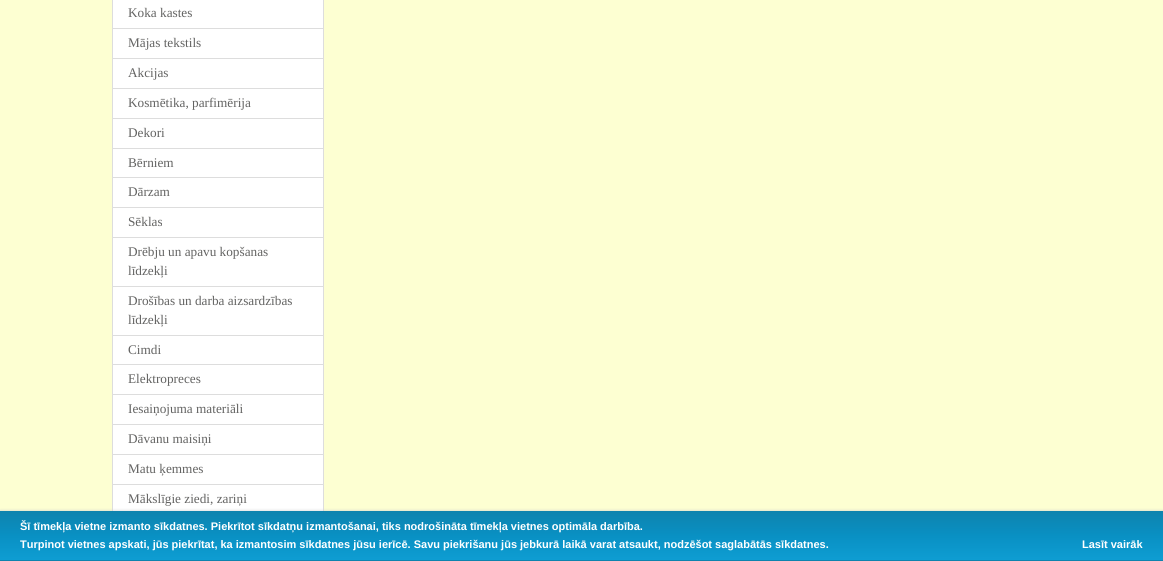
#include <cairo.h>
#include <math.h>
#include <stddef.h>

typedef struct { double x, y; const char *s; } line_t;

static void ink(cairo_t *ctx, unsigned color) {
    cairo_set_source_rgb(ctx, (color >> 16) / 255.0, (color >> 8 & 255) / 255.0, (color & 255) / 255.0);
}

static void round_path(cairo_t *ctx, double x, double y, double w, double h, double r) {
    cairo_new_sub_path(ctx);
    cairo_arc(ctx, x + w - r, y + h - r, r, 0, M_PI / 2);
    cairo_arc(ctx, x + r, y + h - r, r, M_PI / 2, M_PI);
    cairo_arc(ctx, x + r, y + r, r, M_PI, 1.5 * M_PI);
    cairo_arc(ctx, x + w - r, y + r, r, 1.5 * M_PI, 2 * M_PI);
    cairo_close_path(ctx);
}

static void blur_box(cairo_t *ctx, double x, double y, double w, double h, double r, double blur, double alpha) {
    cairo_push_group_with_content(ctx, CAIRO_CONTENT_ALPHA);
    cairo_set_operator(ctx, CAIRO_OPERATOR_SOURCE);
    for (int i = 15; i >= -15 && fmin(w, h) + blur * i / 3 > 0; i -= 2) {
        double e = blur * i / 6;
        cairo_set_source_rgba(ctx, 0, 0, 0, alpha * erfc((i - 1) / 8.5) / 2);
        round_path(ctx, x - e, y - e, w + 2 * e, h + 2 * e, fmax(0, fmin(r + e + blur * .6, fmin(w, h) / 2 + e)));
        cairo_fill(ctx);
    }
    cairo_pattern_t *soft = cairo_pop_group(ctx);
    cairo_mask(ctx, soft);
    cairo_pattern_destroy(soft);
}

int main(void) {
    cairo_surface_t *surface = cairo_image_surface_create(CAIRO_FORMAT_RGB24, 1163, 561);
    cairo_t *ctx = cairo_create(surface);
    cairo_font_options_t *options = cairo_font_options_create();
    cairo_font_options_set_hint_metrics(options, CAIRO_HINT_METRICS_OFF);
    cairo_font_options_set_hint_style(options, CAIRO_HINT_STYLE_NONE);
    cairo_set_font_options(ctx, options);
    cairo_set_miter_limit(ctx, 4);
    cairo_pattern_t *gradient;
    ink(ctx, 0xFDFFD2);
    cairo_paint(ctx);
    ink(ctx, 0xFFFFFF);
    cairo_rectangle(ctx, 112.5, -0.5, 211, 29);
    cairo_fill_preserve(ctx);
    ink(ctx, 0xDDDDDD);
    cairo_set_line_width(ctx, 1);
    cairo_stroke(ctx);
    cairo_select_font_face(ctx, "Liberation Serif", CAIRO_FONT_SLANT_NORMAL, CAIRO_FONT_WEIGHT_NORMAL);
    cairo_set_font_size(ctx, 13.25);
    ink(ctx, 0x636362);
    cairo_move_to(ctx, 128, 17);
    cairo_show_text(ctx, "Koka kastes");
    ink(ctx, 0xFFFFFF);
    cairo_rectangle(ctx, 112.5, 28.5, 211, 30);
    cairo_fill_preserve(ctx);
    ink(ctx, 0xDDDDDD);
    cairo_stroke(ctx);
    ink(ctx, 0x636362);
    cairo_move_to(ctx, 128, 47);
    cairo_show_text(ctx, "Mājas tekstils");
    ink(ctx, 0xFFFFFF);
    cairo_rectangle(ctx, 112.5, 58.5, 211, 30);
    cairo_fill_preserve(ctx);
    ink(ctx, 0xDDDDDD);
    cairo_stroke(ctx);
    ink(ctx, 0x636362);
    cairo_move_to(ctx, 128, 77);
    cairo_show_text(ctx, "Akcijas");
    ink(ctx, 0xFFFFFF);
    cairo_rectangle(ctx, 112.5, 88.5, 211, 30);
    cairo_fill_preserve(ctx);
    ink(ctx, 0xDDDDDD);
    cairo_stroke(ctx);
    ink(ctx, 0x636362);
    cairo_move_to(ctx, 128, 107);
    cairo_show_text(ctx, "Kosmētika, parfimērija");
    ink(ctx, 0xFFFFFF);
    cairo_rectangle(ctx, 112.5, 118.5, 211, 30);
    cairo_fill_preserve(ctx);
    ink(ctx, 0xDDDDDD);
    cairo_stroke(ctx);
    ink(ctx, 0x636362);
    cairo_move_to(ctx, 128, 137);
    cairo_show_text(ctx, "Dekori");
    ink(ctx, 0xFFFFFF);
    cairo_rectangle(ctx, 112.5, 148.5, 211, 29);
    cairo_fill_preserve(ctx);
    ink(ctx, 0xDDDDDD);
    cairo_stroke(ctx);
    ink(ctx, 0x636362);
    cairo_move_to(ctx, 128, 167);
    cairo_show_text(ctx, "Bērniem");
    ink(ctx, 0xFFFFFF);
    cairo_rectangle(ctx, 112.5, 177.5, 211, 30);
    cairo_fill_preserve(ctx);
    ink(ctx, 0xDDDDDD);
    cairo_stroke(ctx);
    ink(ctx, 0x636362);
    cairo_move_to(ctx, 128, 196);
    cairo_show_text(ctx, "Dārzam");
    ink(ctx, 0xFFFFFF);
    cairo_rectangle(ctx, 112.5, 207.5, 211, 30);
    cairo_fill_preserve(ctx);
    ink(ctx, 0xDDDDDD);
    cairo_stroke(ctx);
    ink(ctx, 0x636362);
    cairo_move_to(ctx, 128, 226);
    cairo_show_text(ctx, "Sēklas");
    ink(ctx, 0xFFFFFF);
    cairo_rectangle(ctx, 112.5, 237.5, 211, 49);
    cairo_fill_preserve(ctx);
    ink(ctx, 0xDDDDDD);
    cairo_stroke(ctx);
    ink(ctx, 0x636362);
    cairo_move_to(ctx, 128, 256);
    cairo_show_text(ctx, "Drēbju un apavu kopšanas");
    cairo_move_to(ctx, 128, 275);
    cairo_show_text(ctx, "līdzekļi");
    ink(ctx, 0xFFFFFF);
    cairo_rectangle(ctx, 112.5, 286.5, 211, 49);
    cairo_fill_preserve(ctx);
    ink(ctx, 0xDDDDDD);
    cairo_stroke(ctx);
    ink(ctx, 0x636362);
    cairo_move_to(ctx, 128, 305);
    cairo_show_text(ctx, "Drošības un darba aizsardzības");
    cairo_move_to(ctx, 128, 324);
    cairo_show_text(ctx, "līdzekļi");
    ink(ctx, 0xFFFFFF);
    cairo_rectangle(ctx, 112.5, 335.5, 211, 29);
    cairo_fill_preserve(ctx);
    ink(ctx, 0xDDDDDD);
    cairo_stroke(ctx);
    ink(ctx, 0x636362);
    cairo_move_to(ctx, 128, 354);
    cairo_show_text(ctx, "Cimdi");
    ink(ctx, 0xFFFFFF);
    cairo_rectangle(ctx, 112.5, 364.5, 211, 30);
    cairo_fill_preserve(ctx);
    ink(ctx, 0xDDDDDD);
    cairo_stroke(ctx);
    ink(ctx, 0x636362);
    cairo_move_to(ctx, 128, 383);
    cairo_show_text(ctx, "Elektropreces");
    ink(ctx, 0xFFFFFF);
    cairo_rectangle(ctx, 112.5, 394.5, 211, 30);
    cairo_fill_preserve(ctx);
    ink(ctx, 0xDDDDDD);
    cairo_stroke(ctx);
    ink(ctx, 0x636362);
    cairo_move_to(ctx, 128, 413);
    cairo_show_text(ctx, "Iesaiņojuma materiāli");
    ink(ctx, 0xFFFFFF);
    cairo_rectangle(ctx, 112.5, 424.5, 211, 30);
    cairo_fill_preserve(ctx);
    ink(ctx, 0xDDDDDD);
    cairo_stroke(ctx);
    ink(ctx, 0x636362);
    cairo_move_to(ctx, 128, 443);
    cairo_show_text(ctx, "Dāvanu maisiņi");
    ink(ctx, 0xFFFFFF);
    cairo_rectangle(ctx, 112.5, 454.5, 211, 30);
    cairo_fill_preserve(ctx);
    ink(ctx, 0xDDDDDD);
    cairo_stroke(ctx);
    ink(ctx, 0x636362);
    cairo_move_to(ctx, 128, 473);
    cairo_show_text(ctx, "Matu ķemmes");
    ink(ctx, 0xFFFFFF);
    cairo_rectangle(ctx, 113, 485, 210, 26);
    cairo_fill(ctx);
    cairo_rectangle(ctx, 112.5, 484.5, 211, 30);
    ink(ctx, 0xDDDDDD);
    cairo_stroke(ctx);
    ink(ctx, 0x636362);
    cairo_move_to(ctx, 128, 503);
    cairo_show_text(ctx, "Mākslīgie ziedi, zariņi");
    ink(ctx, 0xCCCCCC);
    blur_box(ctx, 0, 511, 1163, 50, 0, 1.5, 1);
    gradient = cairo_pattern_create_linear(582, 511, 582, 560);
    cairo_pattern_add_color_stop_rgba(gradient, 0, 0.055, 0.514, 0.682, 1);
    cairo_pattern_add_color_stop_rgba(gradient, 0.5, 0.035, 0.565, 0.765, 1);
    cairo_pattern_add_color_stop_rgba(gradient, 1, 0.055, 0.616, 0.824, 1);
    cairo_set_source(ctx, gradient);
    cairo_pattern_destroy(gradient);
    cairo_rectangle(ctx, 0, 511, 1163, 49);
    cairo_fill(ctx);
    gradient = cairo_pattern_create_linear(582, 560, 582, 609);
    cairo_pattern_add_color_stop_rgba(gradient, 0, 0.055, 0.514, 0.682, 1);
    cairo_pattern_add_color_stop_rgba(gradient, 0.5, 0.035, 0.565, 0.765, 1);
    cairo_pattern_add_color_stop_rgba(gradient, 1, 0.055, 0.616, 0.824, 1);
    cairo_set_source(ctx, gradient);
    cairo_pattern_destroy(gradient);
    cairo_rectangle(ctx, 0, 560, 1163, 1);
    cairo_fill(ctx);
    cairo_select_font_face(ctx, "Liberation Sans", CAIRO_FONT_SLANT_NORMAL, CAIRO_FONT_WEIGHT_BOLD);
    cairo_set_font_size(ctx, 11);
    ink(ctx, 0xFFFFFF);
    {
        static const line_t items[] = {
            {20, 530, "Šī tīmekļa vietne izmanto sīkdatnes. Piekrītot sīkdatņu izmantošanai, tiks nodrošināta tīmekļa vietnes optimāla darbība."},
            {20, 548, "Turpinot vietnes apskati, jūs piekrītat, ka izmantosim sīkdatnes jūsu ierīcē. Savu piekrišanu jūs jebkurā laikā varat atsaukt, nodzēšot saglabātās sīkdatnes."},
            {1082, 548, "Lasīt vairāk"},
        };
        for (size_t i = 0; i < sizeof items / sizeof *items; i++) {
            cairo_move_to(ctx, items[i].x, items[i].y);
            cairo_show_text(ctx, items[i].s);
        }
    }
    cairo_surface_write_to_png(surface, "image.png");
    cairo_font_options_destroy(options);
    cairo_destroy(ctx);
    cairo_surface_destroy(surface);
    return 0;
}
